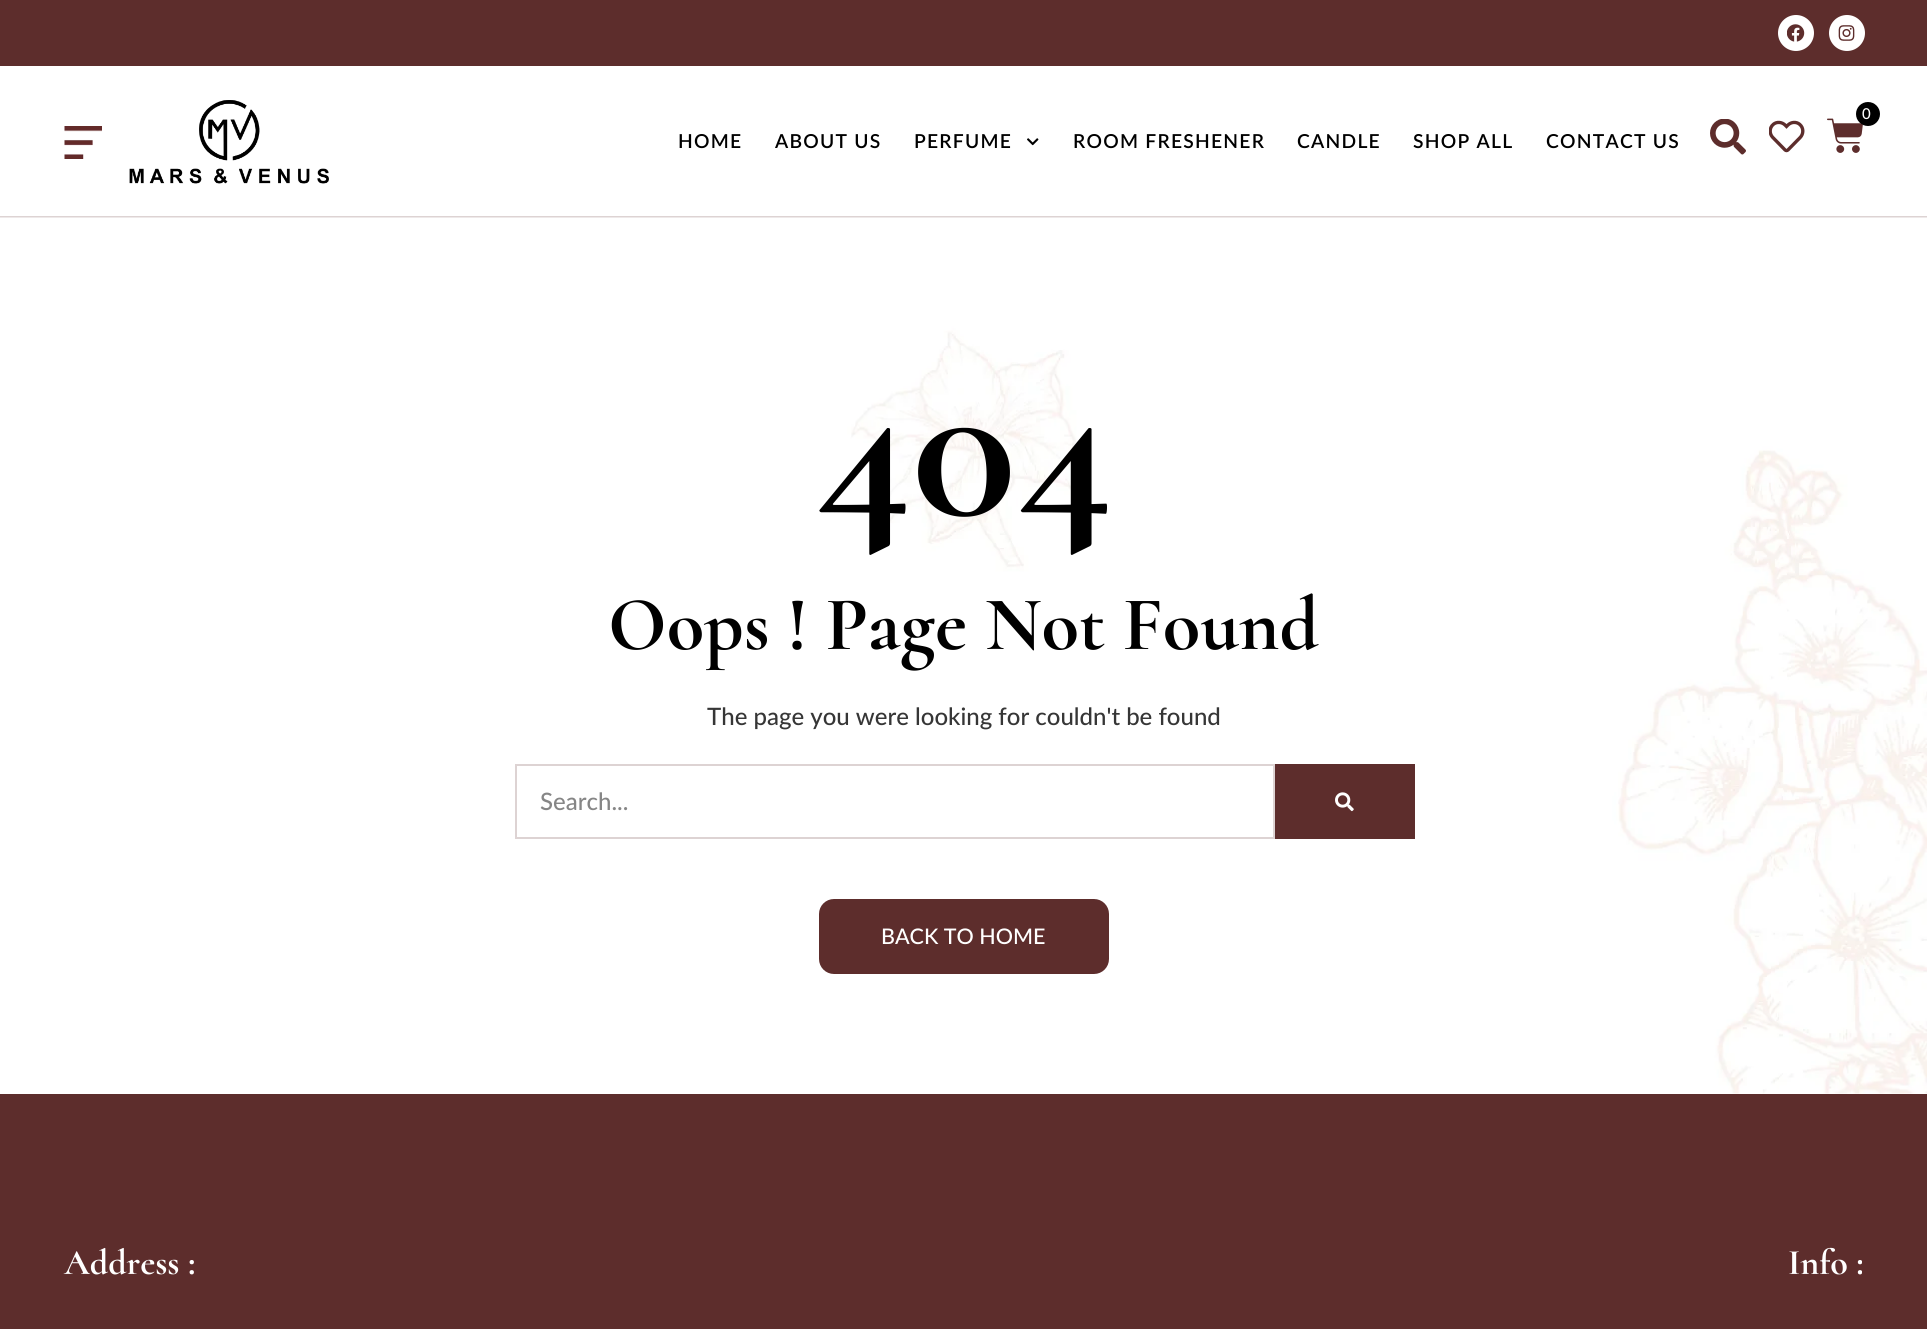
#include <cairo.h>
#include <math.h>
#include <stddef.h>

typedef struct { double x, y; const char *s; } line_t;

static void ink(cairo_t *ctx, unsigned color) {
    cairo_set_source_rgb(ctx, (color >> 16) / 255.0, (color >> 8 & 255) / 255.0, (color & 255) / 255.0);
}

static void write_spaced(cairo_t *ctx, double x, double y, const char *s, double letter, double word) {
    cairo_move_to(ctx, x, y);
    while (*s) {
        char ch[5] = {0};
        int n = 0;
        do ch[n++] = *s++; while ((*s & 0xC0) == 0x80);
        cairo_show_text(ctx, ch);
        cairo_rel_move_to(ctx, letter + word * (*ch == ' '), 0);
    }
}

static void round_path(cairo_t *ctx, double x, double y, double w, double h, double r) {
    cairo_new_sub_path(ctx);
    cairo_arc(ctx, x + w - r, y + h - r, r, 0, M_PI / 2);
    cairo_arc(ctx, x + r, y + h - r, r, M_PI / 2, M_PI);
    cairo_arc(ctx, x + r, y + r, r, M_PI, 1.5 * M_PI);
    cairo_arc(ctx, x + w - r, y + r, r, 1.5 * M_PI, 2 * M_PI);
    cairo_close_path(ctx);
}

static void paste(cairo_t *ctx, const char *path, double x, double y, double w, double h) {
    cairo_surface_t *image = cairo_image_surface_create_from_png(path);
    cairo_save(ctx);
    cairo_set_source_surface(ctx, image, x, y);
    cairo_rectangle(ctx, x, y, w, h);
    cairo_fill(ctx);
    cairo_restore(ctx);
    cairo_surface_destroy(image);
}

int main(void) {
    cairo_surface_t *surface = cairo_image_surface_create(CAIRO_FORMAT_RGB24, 1927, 1329);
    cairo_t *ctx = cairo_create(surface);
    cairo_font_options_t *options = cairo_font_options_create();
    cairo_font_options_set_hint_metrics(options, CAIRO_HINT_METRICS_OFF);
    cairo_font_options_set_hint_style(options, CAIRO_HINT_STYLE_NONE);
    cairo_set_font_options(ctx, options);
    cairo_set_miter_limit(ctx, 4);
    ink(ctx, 0xFFFFFF);
    cairo_paint(ctx);
    ink(ctx, 0x5D2D2C);
    cairo_rectangle(ctx, 0, 0, 1927, 66);
    cairo_fill(ctx);
    ink(ctx, 0xFFFFFF);
    cairo_arc(ctx, 1796, 33, 18, 0, 2 * M_PI);
    cairo_fill(ctx);
    paste(ctx, "media/1.png", 1787, 24, 18, 18);
    cairo_arc(ctx, 1847, 33, 18, 0, 2 * M_PI);
    cairo_fill(ctx);
    paste(ctx, "media/2.png", 1838, 25, 17, 16);
    ink(ctx, 0xDDD3D3);
    cairo_rectangle(ctx, 0, 216, 1927, 2);
    cairo_fill(ctx);
    paste(ctx, "media/3.png", 129, 100, 200, 84);
    paste(ctx, "media/4.png", 1827, 118, 36, 35);
    ink(ctx, 0x000000);
    cairo_arc(ctx, 1868, 114, 12, 0, 2 * M_PI);
    cairo_fill(ctx);
    cairo_select_font_face(ctx, "Lato Medium", CAIRO_FONT_SLANT_NORMAL, CAIRO_FONT_WEIGHT_NORMAL);
    cairo_set_font_size(ctx, 15);
    ink(ctx, 0xFFFFFF);
    cairo_move_to(ctx, 1862, 119);
    cairo_show_text(ctx, "0");
    paste(ctx, "media/5.png", 64, 126, 38, 33);
    cairo_select_font_face(ctx, "Lato SemiBold", CAIRO_FONT_SLANT_NORMAL, CAIRO_FONT_WEIGHT_NORMAL);
    cairo_set_font_size(ctx, 19.25);
    ink(ctx, 0x000000);
    {
        static const line_t items[] = {
            {678, 148, "HOME"},
            {775, 148, "ABOUT US"},
            {914, 148, "PERFUME"},
        };
        for (size_t i = 0; i < sizeof items / sizeof *items; i++) {
            write_spaced(ctx, items[i].x, items[i].y, items[i].s, 1.25, 0);
        }
    }
    paste(ctx, "media/6.png", 1027, 138, 12, 8);
    {
        static const line_t items[] = {
            {1073, 148, "ROOM FRESHENER"},
            {1297, 148, "CANDLE"},
            {1413, 148, "SHOP ALL"},
            {1546, 148, "CONTACT US"},
        };
        for (size_t i = 0; i < sizeof items / sizeof *items; i++) {
            write_spaced(ctx, items[i].x, items[i].y, items[i].s, 1.25, 0);
        }
    }
    paste(ctx, "media/7.png", 1710, 119, 36, 36);
    paste(ctx, "media/8.png", 1769, 120, 36, 33);
    paste(ctx, "media/9.png", 0, 217, 1927, 877);
    cairo_select_font_face(ctx, "Cormorant", CAIRO_FONT_SLANT_NORMAL, CAIRO_FONT_WEIGHT_BOLD);
    cairo_set_font_size(ctx, 216);
    cairo_move_to(ctx, 814, 514);
    cairo_show_text(ctx, "404");
    cairo_set_font_size(ctx, 76.75);
    cairo_move_to(ctx, 608, 649);
    cairo_show_text(ctx, "Oops ! Page Not Found");
    cairo_select_font_face(ctx, "Lato Medium", CAIRO_FONT_SLANT_NORMAL, CAIRO_FONT_WEIGHT_NORMAL);
    cairo_set_font_size(ctx, 24);
    ink(ctx, 0x363636);
    cairo_move_to(ctx, 707, 725);
    cairo_show_text(ctx, "The page you were looking for couldn't be found");
    cairo_rectangle(ctx, 516, 765, 758, 73);
    ink(ctx, 0xDDD3D3);
    cairo_stroke(ctx);
    ink(ctx, 0x868686);
    cairo_move_to(ctx, 540, 810);
    cairo_show_text(ctx, "Search...");
    ink(ctx, 0x5D2D2C);
    cairo_rectangle(ctx, 1275, 764, 140, 75);
    cairo_fill(ctx);
    paste(ctx, "media/10.png", 1335, 792, 19, 20);
    round_path(ctx, 820, 900, 288, 73, 14);
    cairo_fill_preserve(ctx);
    cairo_stroke(ctx);
    cairo_set_font_size(ctx, 21.5);
    ink(ctx, 0xFFFFFF);
    cairo_move_to(ctx, 881, 944);
    cairo_show_text(ctx, "BACK TO HOME");
    ink(ctx, 0x5D2D2C);
    cairo_rectangle(ctx, 0, 1094, 1927, 235);
    cairo_fill(ctx);
    cairo_select_font_face(ctx, "Cormorant", CAIRO_FONT_SLANT_NORMAL, CAIRO_FONT_WEIGHT_BOLD);
    cairo_set_font_size(ctx, 36);
    ink(ctx, 0xFFFFFF);
    cairo_move_to(ctx, 64, 1274);
    cairo_show_text(ctx, "Address :");
    cairo_move_to(ctx, 1788, 1274);
    cairo_show_text(ctx, "Info :");
    cairo_surface_write_to_png(surface, "image.png");
    cairo_font_options_destroy(options);
    cairo_destroy(ctx);
    cairo_surface_destroy(surface);
    return 0;
}
